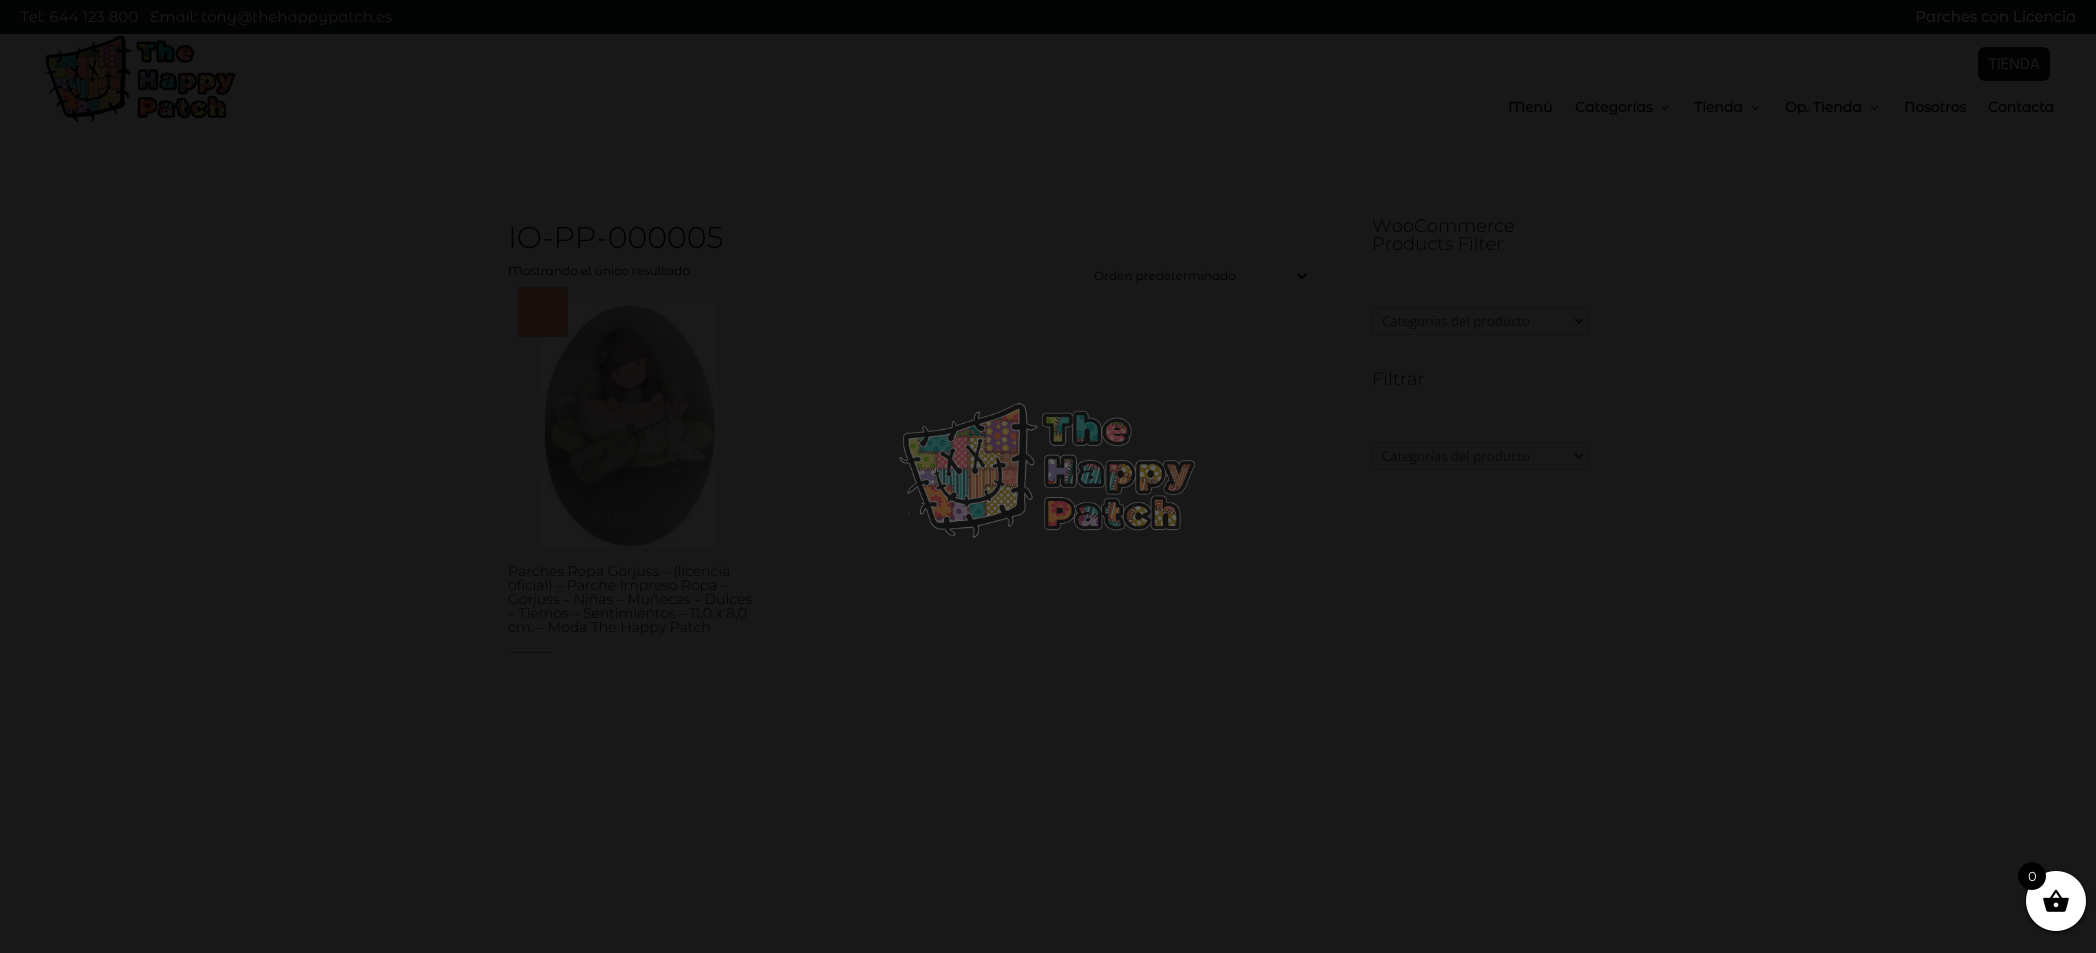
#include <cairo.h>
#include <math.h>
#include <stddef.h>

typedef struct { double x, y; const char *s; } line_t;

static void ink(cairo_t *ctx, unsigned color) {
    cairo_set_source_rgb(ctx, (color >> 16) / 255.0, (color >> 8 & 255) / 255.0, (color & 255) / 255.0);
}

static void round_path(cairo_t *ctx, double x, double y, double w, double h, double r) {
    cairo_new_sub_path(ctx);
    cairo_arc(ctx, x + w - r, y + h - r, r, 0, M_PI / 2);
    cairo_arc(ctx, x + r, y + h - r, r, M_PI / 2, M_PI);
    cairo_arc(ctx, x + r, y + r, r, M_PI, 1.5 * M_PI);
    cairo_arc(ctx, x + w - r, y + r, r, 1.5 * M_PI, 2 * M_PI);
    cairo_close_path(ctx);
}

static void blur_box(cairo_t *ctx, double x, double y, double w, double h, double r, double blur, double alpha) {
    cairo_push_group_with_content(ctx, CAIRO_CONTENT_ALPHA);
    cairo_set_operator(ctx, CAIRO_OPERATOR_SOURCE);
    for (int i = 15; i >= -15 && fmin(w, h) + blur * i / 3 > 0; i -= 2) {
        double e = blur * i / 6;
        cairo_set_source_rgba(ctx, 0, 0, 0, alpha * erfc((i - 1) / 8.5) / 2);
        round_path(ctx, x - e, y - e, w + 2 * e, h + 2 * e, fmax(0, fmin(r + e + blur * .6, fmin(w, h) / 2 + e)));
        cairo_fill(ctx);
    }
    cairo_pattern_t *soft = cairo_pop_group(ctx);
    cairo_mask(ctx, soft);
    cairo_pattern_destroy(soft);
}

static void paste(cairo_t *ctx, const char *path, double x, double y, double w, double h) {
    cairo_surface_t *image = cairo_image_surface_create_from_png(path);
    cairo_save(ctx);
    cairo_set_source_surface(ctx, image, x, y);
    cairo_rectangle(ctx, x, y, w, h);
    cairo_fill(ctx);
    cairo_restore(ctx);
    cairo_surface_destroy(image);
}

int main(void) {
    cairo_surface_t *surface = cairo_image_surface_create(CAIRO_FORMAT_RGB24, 2096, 953);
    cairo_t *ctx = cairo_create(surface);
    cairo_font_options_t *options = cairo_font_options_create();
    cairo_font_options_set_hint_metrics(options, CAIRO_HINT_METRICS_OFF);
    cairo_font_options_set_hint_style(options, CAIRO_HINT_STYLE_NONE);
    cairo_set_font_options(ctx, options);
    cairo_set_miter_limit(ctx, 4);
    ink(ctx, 0x181818);
    cairo_paint(ctx);
    ink(ctx, 0x020303);
    cairo_rectangle(ctx, 0, 0, 2096, 34);
    cairo_fill(ctx);
    cairo_select_font_face(ctx, "Montserrat Alternates", CAIRO_FONT_SLANT_NORMAL, CAIRO_FONT_WEIGHT_NORMAL);
    cairo_set_font_size(ctx, 15);
    ink(ctx, 0x191919);
    cairo_move_to(ctx, 20, 22);
    cairo_show_text(ctx, "Tel: 644 123 800   Email: tony@thehappypatch.es");
    cairo_select_font_face(ctx, "Montserrat Alternates", CAIRO_FONT_SLANT_NORMAL, CAIRO_FONT_WEIGHT_BOLD);
    cairo_move_to(ctx, 1915, 22);
    cairo_show_text(ctx, "Parches con Licencia");
    paste(ctx, "media/1.png", 43, 35, 194, 88);
    ink(ctx, 0x020202);
    round_path(ctx, 1977.5, 46.5, 73, 35, 7.5);
    cairo_fill_preserve(ctx);
    ink(ctx, 0x191919);
    cairo_set_line_width(ctx, 1);
    cairo_stroke(ctx);
    cairo_select_font_face(ctx, "Manrope Medium", CAIRO_FONT_SLANT_NORMAL, CAIRO_FONT_WEIGHT_NORMAL);
    cairo_move_to(ctx, 1988, 69);
    cairo_show_text(ctx, "TIENDA");
    cairo_select_font_face(ctx, "Montserrat Alternates", CAIRO_FONT_SLANT_NORMAL, CAIRO_FONT_WEIGHT_BOLD);
    cairo_set_font_size(ctx, 14);
    ink(ctx, 0x000000);
    cairo_move_to(ctx, 1508, 112);
    cairo_show_text(ctx, "Menú");
    cairo_move_to(ctx, 1575, 112);
    cairo_show_text(ctx, "Categorías");
    paste(ctx, "media/2.png", 1660, 105, 9, 5);
    cairo_move_to(ctx, 1694, 112);
    cairo_show_text(ctx, "Tienda");
    paste(ctx, "media/2.png", 1751, 105, 9, 5);
    cairo_move_to(ctx, 1785, 112);
    cairo_show_text(ctx, "Op. Tienda");
    paste(ctx, "media/2.png", 1870, 105, 9, 5);
    cairo_move_to(ctx, 1904, 112);
    cairo_show_text(ctx, "Nosotros");
    cairo_move_to(ctx, 1988, 112);
    cairo_show_text(ctx, "Contacta");
    cairo_select_font_face(ctx, "Montserrat Light", CAIRO_FONT_SLANT_NORMAL, CAIRO_FONT_WEIGHT_NORMAL);
    cairo_set_font_size(ctx, 30);
    cairo_move_to(ctx, 508, 248);
    cairo_show_text(ctx, "IO-PP-000005");
    cairo_select_font_face(ctx, "Montserrat Alternates", CAIRO_FONT_SLANT_NORMAL, CAIRO_FONT_WEIGHT_NORMAL);
    cairo_set_font_size(ctx, 12);
    cairo_move_to(ctx, 508, 275);
    cairo_show_text(ctx, "Mostrando el único resultado");
    cairo_new_path(ctx);
    cairo_move_to(ctx, 1298, 274);
    cairo_line_to(ctx, 1302, 278);
    cairo_line_to(ctx, 1306, 274);
    cairo_set_line_width(ctx, 2);
    cairo_stroke(ctx);
    cairo_move_to(ctx, 1094, 280);
    cairo_show_text(ctx, "Orden predeterminado");
    paste(ctx, "media/3.png", 542, 303, 176, 245);
    ink(ctx, 0x180E0A);
    round_path(ctx, 518, 287, 50, 50, 3);
    cairo_fill(ctx);
    cairo_select_font_face(ctx, "Montserrat Light", CAIRO_FONT_SLANT_NORMAL, CAIRO_FONT_WEIGHT_NORMAL);
    cairo_set_font_size(ctx, 14);
    ink(ctx, 0x000000);
    {
        static const line_t items[] = {
            {508, 576, "Parches Ropa Gorjuss – (licencia"},
            {508, 590, "oficial) – Parche Impreso Ropa –"},
            {508, 604, "Gorjuss – Niñas – Muñecas – Dulces"},
            {508, 618, "– Tiernos – Sentimientos – 11,0 x 8,0"},
            {508, 632, "cm. – Moda The Happy Patch"},
        };
        for (size_t i = 0; i < sizeof items / sizeof *items; i++) {
            cairo_move_to(ctx, items[i].x, items[i].y);
            cairo_show_text(ctx, items[i].s);
        }
    }
    ink(ctx, 0x0F0F0F);
    cairo_rectangle(ctx, 508, 652, 44, 1);
    cairo_fill(ctx);
    cairo_set_font_size(ctx, 18);
    ink(ctx, 0x000000);
    cairo_move_to(ctx, 1372, 232);
    cairo_show_text(ctx, "WooCommerce");
    cairo_move_to(ctx, 1372, 250);
    cairo_show_text(ctx, "Products Filter");
    cairo_rectangle(ctx, 1372.5, 307.5, 215, 27);
    ink(ctx, 0x131313);
    cairo_set_line_width(ctx, 1);
    cairo_stroke(ctx);
    cairo_new_path(ctx);
    cairo_move_to(ctx, 1575, 319);
    cairo_line_to(ctx, 1579, 323);
    cairo_line_to(ctx, 1583, 319);
    ink(ctx, 0x080808);
    cairo_set_line_width(ctx, 2);
    cairo_stroke(ctx);
    cairo_select_font_face(ctx, "Open Sans", CAIRO_FONT_SLANT_NORMAL, CAIRO_FONT_WEIGHT_NORMAL);
    cairo_set_font_size(ctx, 13.25);
    cairo_move_to(ctx, 1382, 326);
    cairo_show_text(ctx, "Categorías del producto");
    cairo_select_font_face(ctx, "Montserrat Light", CAIRO_FONT_SLANT_NORMAL, CAIRO_FONT_WEIGHT_NORMAL);
    cairo_set_font_size(ctx, 18);
    ink(ctx, 0x000000);
    cairo_move_to(ctx, 1372, 385);
    cairo_show_text(ctx, "Filtrar");
    cairo_rectangle(ctx, 1372.5, 442.5, 215, 27);
    ink(ctx, 0x131313);
    cairo_set_line_width(ctx, 1);
    cairo_stroke(ctx);
    cairo_new_path(ctx);
    cairo_move_to(ctx, 1575, 454);
    cairo_line_to(ctx, 1579, 458);
    cairo_line_to(ctx, 1583, 454);
    ink(ctx, 0x080808);
    cairo_set_line_width(ctx, 2);
    cairo_stroke(ctx);
    cairo_select_font_face(ctx, "Open Sans", CAIRO_FONT_SLANT_NORMAL, CAIRO_FONT_WEIGHT_NORMAL);
    cairo_set_font_size(ctx, 13.25);
    cairo_move_to(ctx, 1382, 461);
    cairo_show_text(ctx, "Categorías del producto");
    paste(ctx, "media/4.png", 899, 402, 296, 136);
    ink(ctx, 0x000000);
    blur_box(ctx, 2026, 872, 60, 60, 30, 2, 1);
    ink(ctx, 0xFFFFFF);
    cairo_arc(ctx, 2056, 901, 30, 0, 2 * M_PI);
    cairo_fill(ctx);
    paste(ctx, "media/5.png", 2043, 889, 26, 23);
    ink(ctx, 0x000000);
    cairo_arc(ctx, 2032, 876, 14, 0, 2 * M_PI);
    cairo_fill(ctx);
    cairo_select_font_face(ctx, "Montserrat Alternates", CAIRO_FONT_SLANT_NORMAL, CAIRO_FONT_WEIGHT_NORMAL);
    cairo_set_font_size(ctx, 13);
    ink(ctx, 0xFFFFFF);
    cairo_move_to(ctx, 2028, 881);
    cairo_show_text(ctx, "0");
    cairo_surface_write_to_png(surface, "image.png");
    cairo_font_options_destroy(options);
    cairo_destroy(ctx);
    cairo_surface_destroy(surface);
    return 0;
}
